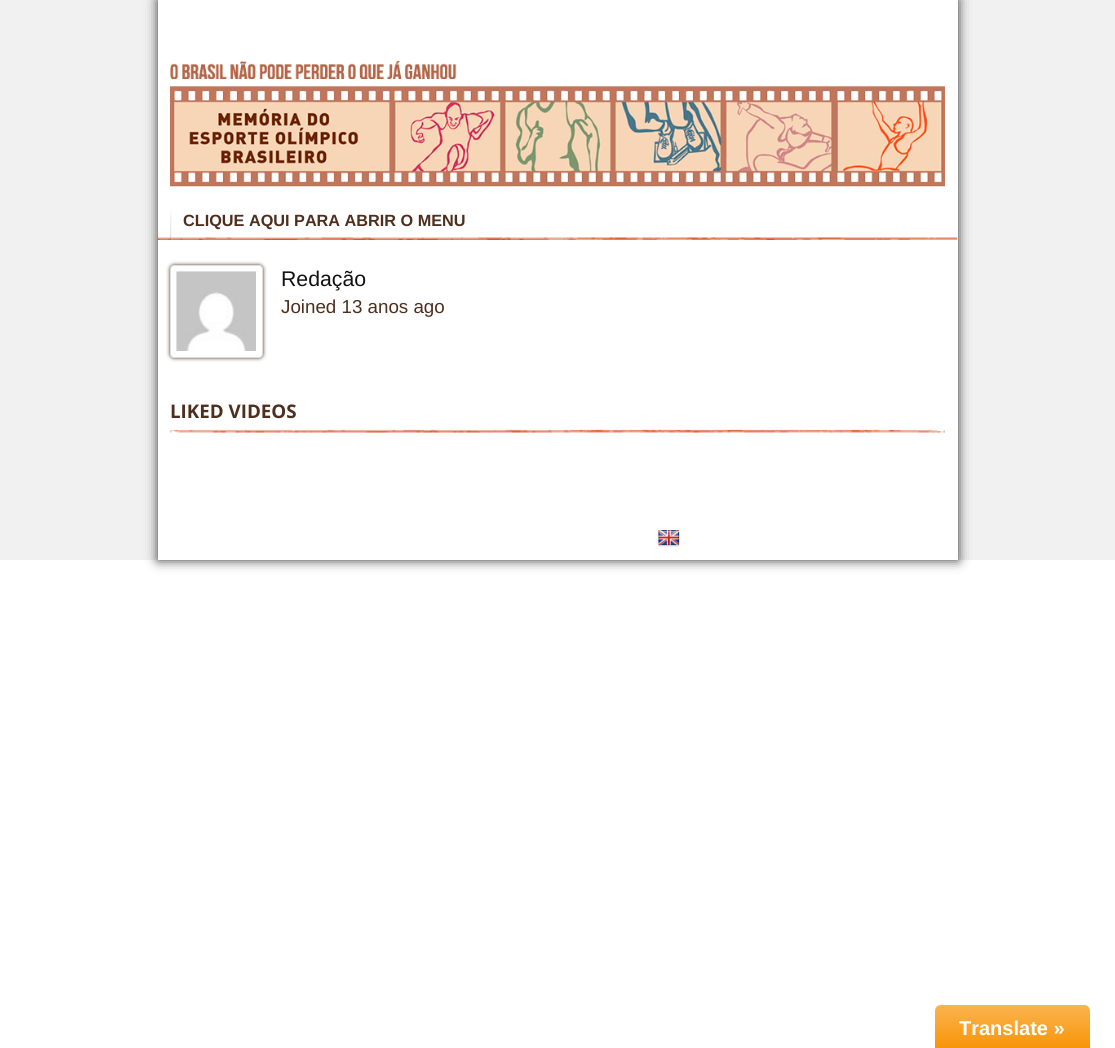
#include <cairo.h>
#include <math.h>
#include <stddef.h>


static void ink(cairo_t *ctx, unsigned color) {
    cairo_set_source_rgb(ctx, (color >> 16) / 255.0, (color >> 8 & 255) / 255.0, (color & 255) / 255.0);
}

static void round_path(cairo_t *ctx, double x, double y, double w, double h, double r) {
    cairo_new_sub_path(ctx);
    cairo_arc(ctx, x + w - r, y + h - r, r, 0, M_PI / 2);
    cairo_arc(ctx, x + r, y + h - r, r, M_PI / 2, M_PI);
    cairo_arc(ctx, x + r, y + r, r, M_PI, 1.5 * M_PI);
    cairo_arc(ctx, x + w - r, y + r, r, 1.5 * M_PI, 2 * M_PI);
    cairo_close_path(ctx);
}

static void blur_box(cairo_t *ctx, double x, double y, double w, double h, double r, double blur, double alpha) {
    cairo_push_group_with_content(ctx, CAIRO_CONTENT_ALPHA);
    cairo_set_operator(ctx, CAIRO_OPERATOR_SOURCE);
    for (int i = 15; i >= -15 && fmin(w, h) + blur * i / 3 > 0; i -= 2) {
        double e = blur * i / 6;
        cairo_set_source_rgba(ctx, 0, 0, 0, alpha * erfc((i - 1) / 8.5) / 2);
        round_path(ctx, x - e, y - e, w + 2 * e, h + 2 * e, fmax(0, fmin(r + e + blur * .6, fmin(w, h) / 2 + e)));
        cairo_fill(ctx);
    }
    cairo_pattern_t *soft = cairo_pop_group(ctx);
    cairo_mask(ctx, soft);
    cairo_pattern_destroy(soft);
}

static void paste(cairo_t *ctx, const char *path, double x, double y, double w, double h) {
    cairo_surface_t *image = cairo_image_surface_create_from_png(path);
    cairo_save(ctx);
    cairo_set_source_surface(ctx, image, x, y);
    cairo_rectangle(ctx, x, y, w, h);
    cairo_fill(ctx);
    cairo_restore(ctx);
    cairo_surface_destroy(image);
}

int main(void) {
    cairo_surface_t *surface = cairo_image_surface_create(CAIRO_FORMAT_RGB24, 1115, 1048);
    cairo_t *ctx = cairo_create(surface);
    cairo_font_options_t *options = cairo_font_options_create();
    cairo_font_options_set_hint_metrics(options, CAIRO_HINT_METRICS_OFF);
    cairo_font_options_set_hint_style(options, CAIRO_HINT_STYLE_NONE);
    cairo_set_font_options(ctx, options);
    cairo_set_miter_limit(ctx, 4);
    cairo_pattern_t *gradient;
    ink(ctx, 0xFFFFFF);
    cairo_paint(ctx);
    ink(ctx, 0xF1F1F1);
    cairo_rectangle(ctx, 0, 0, 1115, 560);
    cairo_fill(ctx);
    ink(ctx, 0x000000);
    blur_box(ctx, 158, 0, 800, 560, 0, 6, 0.8);
    ink(ctx, 0xFFFFFF);
    cairo_rectangle(ctx, 158, 0, 800, 560);
    cairo_fill(ctx);
    paste(ctx, "media/1.png", 170, 61, 775, 126);
    paste(ctx, "media/2.png", 157, 237, 801, 3);
    paste(ctx, "media/3.png", 170, 209, 3, 31);
    cairo_select_font_face(ctx, "Liberation Sans", CAIRO_FONT_SLANT_NORMAL, CAIRO_FONT_WEIGHT_BOLD);
    cairo_set_font_size(ctx, 16.25);
    ink(ctx, 0x4E2F1E);
    cairo_move_to(ctx, 183, 226);
    cairo_show_text(ctx, "CLIQUE AQUI PARA ABRIR O MENU");
    ink(ctx, 0x4E2F1E);
    blur_box(ctx, 170, 265, 93, 93, 4, 2, 1);
    ink(ctx, 0xFFFFFF);
    round_path(ctx, 170.5, 265.5, 92, 92, 3.5);
    cairo_fill_preserve(ctx);
    ink(ctx, 0xDDDDDD);
    cairo_set_line_width(ctx, 1);
    cairo_stroke(ctx);
    paste(ctx, "media/4.png", 176, 271, 80, 80);
    cairo_select_font_face(ctx, "Liberation Sans", CAIRO_FONT_SLANT_NORMAL, CAIRO_FONT_WEIGHT_NORMAL);
    cairo_set_font_size(ctx, 21.25);
    ink(ctx, 0x111111);
    cairo_move_to(ctx, 281, 286);
    cairo_show_text(ctx, "Redação");
    cairo_set_font_size(ctx, 18.75);
    ink(ctx, 0x4E2F1E);
    cairo_move_to(ctx, 281, 313);
    cairo_show_text(ctx, "Joined 13 anos ago");
    paste(ctx, "media/5.png", 170, 429, 775, 4);
    cairo_select_font_face(ctx, "Open Sans", CAIRO_FONT_SLANT_NORMAL, CAIRO_FONT_WEIGHT_BOLD);
    cairo_move_to(ctx, 170, 418);
    cairo_show_text(ctx, "LIKED VIDEOS");
    paste(ctx, "media/6.png", 657, 530, 23, 17);
    gradient = cairo_pattern_create_linear(1013, 1005, 1013, 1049);
    cairo_pattern_add_color_stop_rgba(gradient, 0, 0.984, 0.706, 0.314, 1);
    cairo_pattern_add_color_stop_rgba(gradient, 1, 0.973, 0.58, 0.024, 1);
    cairo_set_source(ctx, gradient);
    cairo_pattern_destroy(gradient);
    cairo_new_path(ctx);
    cairo_move_to(ctx, 941, 1005);
    cairo_line_to(ctx, 1084, 1005);
    cairo_curve_to(ctx, 1087.5, 1005, 1090, 1007.5, 1090, 1011);
    cairo_line_to(ctx, 1090, 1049);
    cairo_line_to(ctx, 935, 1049);
    cairo_line_to(ctx, 935, 1011);
    cairo_curve_to(ctx, 935, 1007.5, 937.5, 1005, 941, 1005);
    cairo_close_path(ctx);
    cairo_fill(ctx);
    cairo_select_font_face(ctx, "Liberation Sans", CAIRO_FONT_SLANT_NORMAL, CAIRO_FONT_WEIGHT_BOLD);
    cairo_set_font_size(ctx, 20);
    ink(ctx, 0xFFFFFF);
    cairo_move_to(ctx, 959, 1035);
    cairo_show_text(ctx, "Translate »");
    cairo_surface_write_to_png(surface, "image.png");
    cairo_font_options_destroy(options);
    cairo_destroy(ctx);
    cairo_surface_destroy(surface);
    return 0;
}
